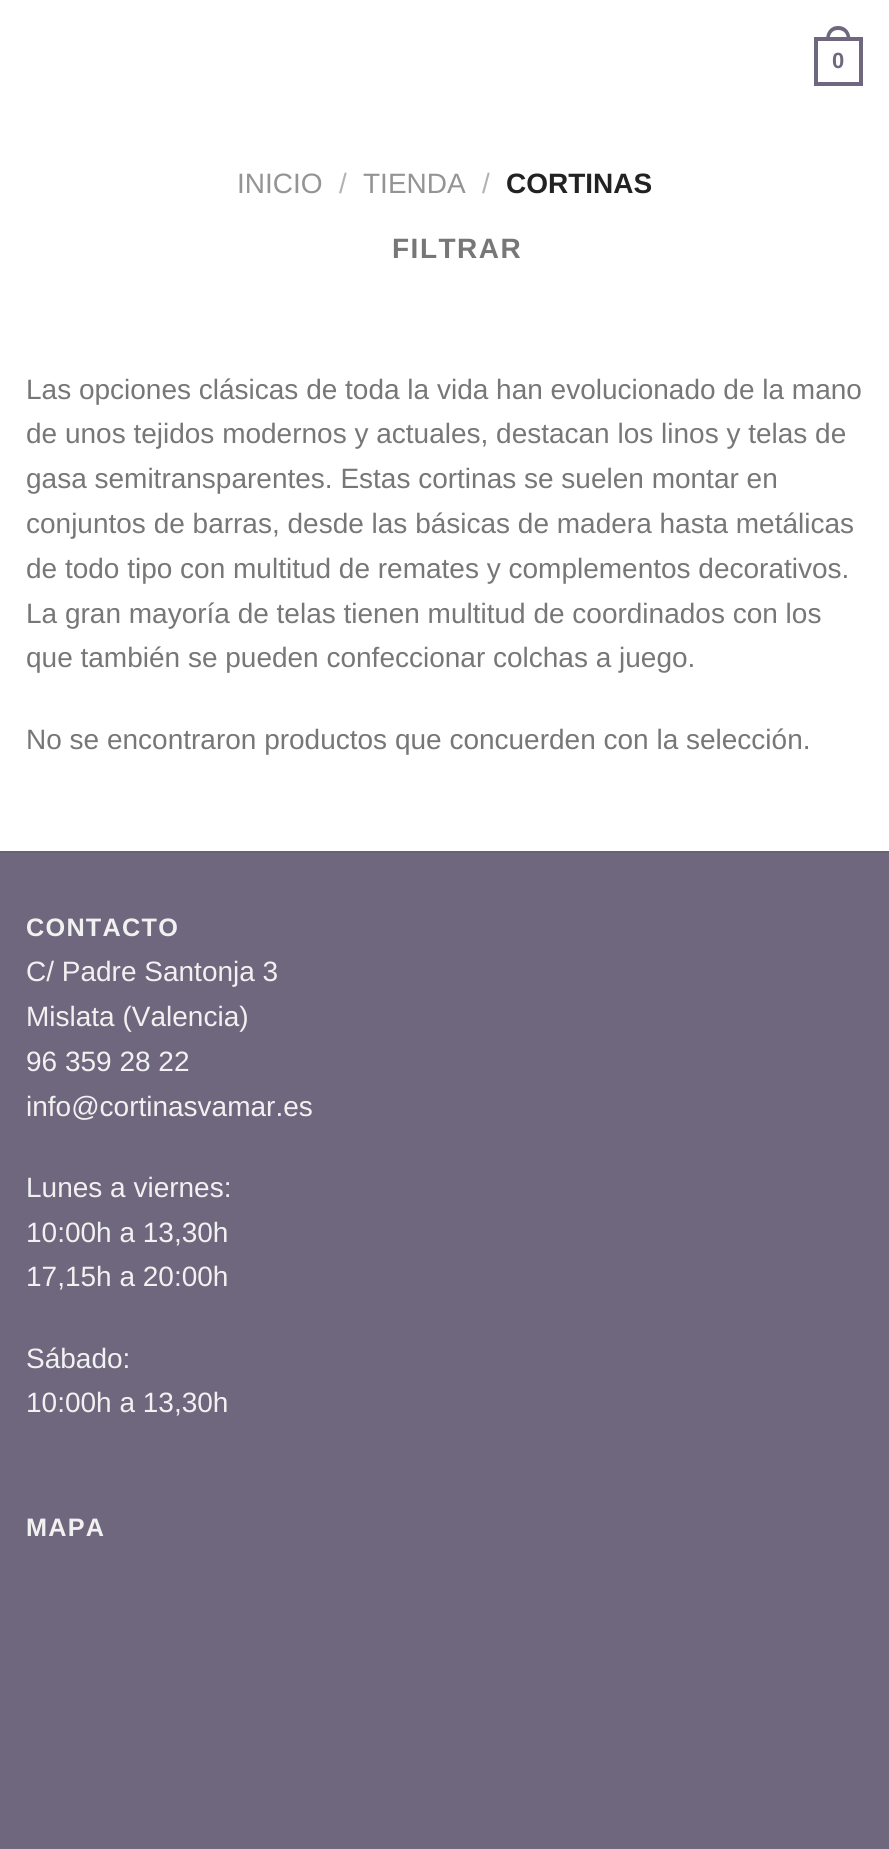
#include <cairo.h>
#include <math.h>
#include <stddef.h>

typedef struct { double x, y; const char *s; } line_t;

static void ink(cairo_t *ctx, unsigned color) {
    cairo_set_source_rgb(ctx, (color >> 16) / 255.0, (color >> 8 & 255) / 255.0, (color & 255) / 255.0);
}

static void write_spaced(cairo_t *ctx, double x, double y, const char *s, double letter, double word) {
    cairo_move_to(ctx, x, y);
    while (*s) {
        char ch[5] = {0};
        int n = 0;
        do ch[n++] = *s++; while ((*s & 0xC0) == 0x80);
        cairo_show_text(ctx, ch);
        cairo_rel_move_to(ctx, letter + word * (*ch == ' '), 0);
    }
}

int main(void) {
    cairo_surface_t *surface = cairo_image_surface_create(CAIRO_FORMAT_RGB24, 889, 1849);
    cairo_t *ctx = cairo_create(surface);
    cairo_font_options_t *options = cairo_font_options_create();
    cairo_font_options_set_hint_metrics(options, CAIRO_HINT_METRICS_OFF);
    cairo_font_options_set_hint_style(options, CAIRO_HINT_STYLE_NONE);
    cairo_set_font_options(ctx, options);
    cairo_set_miter_limit(ctx, 4);
    ink(ctx, 0xFFFFFF);
    cairo_paint(ctx);
    cairo_rectangle(ctx, 816, 39, 45, 45);
    ink(ctx, 0x6F677D);
    cairo_set_line_width(ctx, 4);
    cairo_stroke(ctx);
    cairo_set_fill_rule(ctx, CAIRO_FILL_RULE_EVEN_ODD);
    cairo_new_path(ctx);
    cairo_move_to(ctx, 838, 26);
    cairo_curve_to(ctx, 846.5, 26, 850.5, 32.5, 850.5, 40);
    cairo_line_to(ctx, 826, 40);
    cairo_curve_to(ctx, 826, 32.5, 830, 26, 838, 26);
    cairo_close_path(ctx);
    cairo_move_to(ctx, 838, 30);
    cairo_curve_to(ctx, 844.5, 30, 847, 34.5, 847, 40);
    cairo_line_to(ctx, 829.5, 40);
    cairo_curve_to(ctx, 829.5, 34.5, 832, 30, 838, 30);
    cairo_close_path(ctx);
    cairo_fill(ctx);
    cairo_select_font_face(ctx, "Liberation Sans", CAIRO_FONT_SLANT_NORMAL, CAIRO_FONT_WEIGHT_BOLD);
    cairo_set_font_size(ctx, 22);
    cairo_move_to(ctx, 832, 68);
    cairo_show_text(ctx, "0");
    cairo_select_font_face(ctx, "Liberation Sans", CAIRO_FONT_SLANT_NORMAL, CAIRO_FONT_WEIGHT_NORMAL);
    cairo_set_font_size(ctx, 28);
    ink(ctx, 0x949494);
    cairo_move_to(ctx, 237, 193);
    cairo_show_text(ctx, "INICIO");
    ink(ctx, 0xB2B2B2);
    cairo_move_to(ctx, 339, 193);
    cairo_show_text(ctx, "/");
    ink(ctx, 0x949494);
    cairo_move_to(ctx, 363, 193);
    cairo_show_text(ctx, "TIENDA");
    ink(ctx, 0xB2B2B2);
    cairo_move_to(ctx, 482, 193);
    cairo_show_text(ctx, "/");
    cairo_select_font_face(ctx, "Liberation Sans", CAIRO_FONT_SLANT_NORMAL, CAIRO_FONT_WEIGHT_BOLD);
    ink(ctx, 0x222222);
    cairo_move_to(ctx, 506, 193);
    cairo_show_text(ctx, "CORTINAS");
    ink(ctx, 0x777777);
    write_spaced(ctx, 392, 258, "FILTRAR", 1.5, 0);
    cairo_select_font_face(ctx, "Liberation Sans", CAIRO_FONT_SLANT_NORMAL, CAIRO_FONT_WEIGHT_NORMAL);
    {
        static const line_t items[] = {
            {26, 399, "Las opciones clásicas de toda la vida han evolucionado de la mano"},
            {26, 443, "de unos tejidos modernos y actuales, destacan los linos y telas de"},
            {26, 488, "gasa semitransparentes. Estas cortinas se suelen montar en"},
            {26, 533, "conjuntos de barras, desde las básicas de madera hasta metálicas"},
            {26, 578, "de todo tipo con multitud de remates y complementos decorativos."},
            {26, 623, "La gran mayoría de telas tienen multitud de coordinados con los"},
            {26, 667, "que también se pueden confeccionar colchas a juego."},
            {26, 749, "No se encontraron productos que concuerden con la selección."},
        };
        for (size_t i = 0; i < sizeof items / sizeof *items; i++) {
            cairo_move_to(ctx, items[i].x, items[i].y);
            cairo_show_text(ctx, items[i].s);
        }
    }
    ink(ctx, 0x6F677D);
    cairo_rectangle(ctx, 0, 853, 889, 996);
    cairo_fill(ctx);
    ink(ctx, 0x696277);
    cairo_rectangle(ctx, 0, 851, 889, 2);
    cairo_fill(ctx);
    cairo_select_font_face(ctx, "Liberation Sans", CAIRO_FONT_SLANT_NORMAL, CAIRO_FONT_WEIGHT_BOLD);
    cairo_set_font_size(ctx, 25.25);
    ink(ctx, 0xF1F1F1);
    write_spaced(ctx, 26, 936, "CONTACTO", 1.25, 0);
    cairo_select_font_face(ctx, "Liberation Sans", CAIRO_FONT_SLANT_NORMAL, CAIRO_FONT_WEIGHT_NORMAL);
    cairo_set_font_size(ctx, 28);
    {
        static const line_t items[] = {
            {26, 981, "C/ Padre Santonja 3"},
            {26, 1026, "Mislata (Valencia)"},
            {26, 1071, "96 359 28 22"},
            {26, 1116, "info@cortinasvamar.es"},
            {26, 1197, "Lunes a viernes:"},
            {26, 1242, "10:00h a 13,30h"},
            {26, 1286, "17,15h a 20:00h"},
            {26, 1368, "Sábado:"},
            {26, 1412, "10:00h a 13,30h"},
        };
        for (size_t i = 0; i < sizeof items / sizeof *items; i++) {
            cairo_move_to(ctx, items[i].x, items[i].y);
            cairo_show_text(ctx, items[i].s);
        }
    }
    cairo_select_font_face(ctx, "Liberation Sans", CAIRO_FONT_SLANT_NORMAL, CAIRO_FONT_WEIGHT_BOLD);
    cairo_set_font_size(ctx, 25.25);
    write_spaced(ctx, 26, 1536, "MAPA", 1.25, 0);
    cairo_surface_write_to_png(surface, "image.png");
    cairo_font_options_destroy(options);
    cairo_destroy(ctx);
    cairo_surface_destroy(surface);
    return 0;
}
